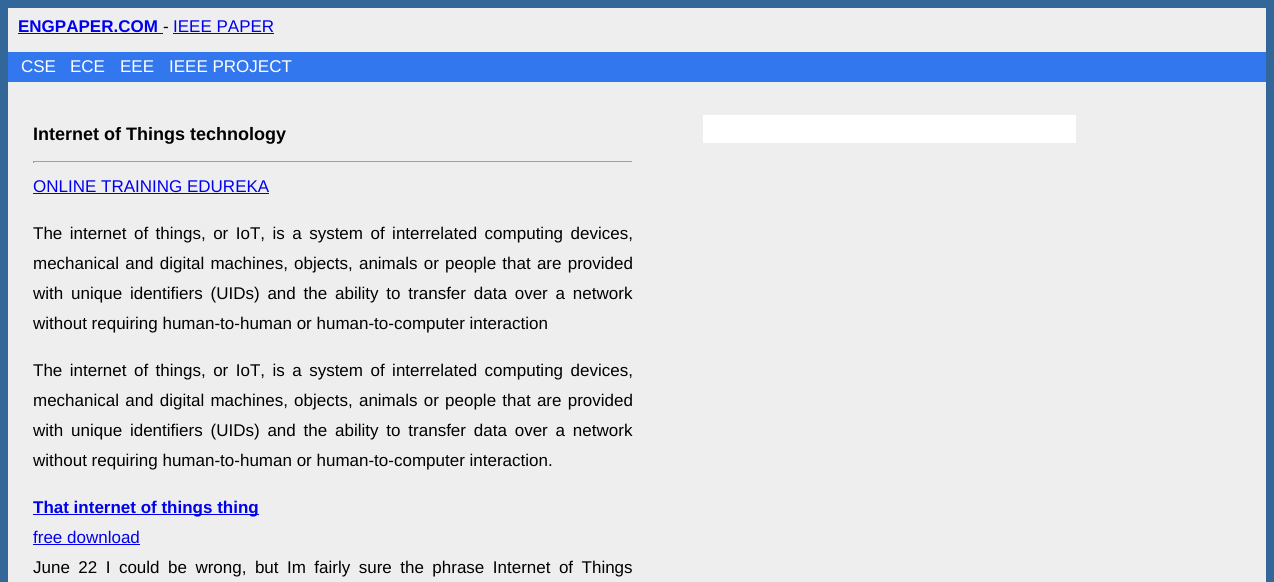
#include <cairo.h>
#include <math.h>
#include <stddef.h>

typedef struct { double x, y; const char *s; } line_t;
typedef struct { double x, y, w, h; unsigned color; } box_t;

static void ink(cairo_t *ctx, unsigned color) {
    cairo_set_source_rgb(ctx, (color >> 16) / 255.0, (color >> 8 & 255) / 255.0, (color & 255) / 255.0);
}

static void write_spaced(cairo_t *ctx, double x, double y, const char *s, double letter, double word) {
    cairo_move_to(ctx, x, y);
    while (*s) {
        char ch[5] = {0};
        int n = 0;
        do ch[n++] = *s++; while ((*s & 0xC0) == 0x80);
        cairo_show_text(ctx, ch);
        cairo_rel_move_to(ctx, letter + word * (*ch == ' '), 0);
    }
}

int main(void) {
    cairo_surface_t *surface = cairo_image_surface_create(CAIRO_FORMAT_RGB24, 1274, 582);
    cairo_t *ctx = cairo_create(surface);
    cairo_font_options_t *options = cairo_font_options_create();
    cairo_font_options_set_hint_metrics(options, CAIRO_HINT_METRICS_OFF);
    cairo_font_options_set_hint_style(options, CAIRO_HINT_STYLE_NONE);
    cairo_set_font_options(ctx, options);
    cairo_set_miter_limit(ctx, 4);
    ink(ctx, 0x336699);
    cairo_paint(ctx);
    ink(ctx, 0xEEEEEE);
    cairo_rectangle(ctx, 8, 8, 1258, 574);
    cairo_fill(ctx);
    cairo_select_font_face(ctx, "Liberation Sans", CAIRO_FONT_SLANT_NORMAL, CAIRO_FONT_WEIGHT_BOLD);
    cairo_set_font_size(ctx, 17);
    ink(ctx, 0x0000EE);
    cairo_move_to(ctx, 18, 32);
    cairo_show_text(ctx, "ENGPAPER.COM");
    cairo_rectangle(ctx, 18, 33, 145, 1);
    cairo_fill(ctx);
    cairo_select_font_face(ctx, "Liberation Sans", CAIRO_FONT_SLANT_NORMAL, CAIRO_FONT_WEIGHT_NORMAL);
    ink(ctx, 0x000000);
    cairo_move_to(ctx, 163, 32);
    cairo_show_text(ctx, "-");
    ink(ctx, 0x0000EE);
    cairo_move_to(ctx, 173, 32);
    cairo_show_text(ctx, "IEEE PAPER");
    cairo_rectangle(ctx, 173, 33, 101, 1);
    cairo_fill(ctx);
    ink(ctx, 0x3377EE);
    cairo_rectangle(ctx, 8, 52, 1258, 30);
    cairo_fill(ctx);
    ink(ctx, 0xFFFFFF);
    {
        static const line_t items[] = {
            {21, 72, "CSE"},
            {70, 72, "ECE"},
            {120, 72, "EEE"},
            {169, 72, "IEEE PROJECT"},
        };
        for (size_t i = 0; i < sizeof items / sizeof *items; i++) {
            cairo_move_to(ctx, items[i].x, items[i].y);
            cairo_show_text(ctx, items[i].s);
        }
    }
    cairo_select_font_face(ctx, "Liberation Sans", CAIRO_FONT_SLANT_NORMAL, CAIRO_FONT_WEIGHT_BOLD);
    cairo_set_font_size(ctx, 18);
    ink(ctx, 0x000000);
    cairo_move_to(ctx, 33, 140);
    cairo_show_text(ctx, "Internet of Things technology");
    {
        static const box_t items[] = {
            {33, 161, 600, 1, 0x9F9F9F},
            {632, 161, 1, 2, 0xEEEEEE},
            {33, 161, 1, 2, 0x9F9F9F},
        };
        for (size_t i = 0; i < sizeof items / sizeof *items; i++) {
            ink(ctx, items[i].color);
            cairo_rectangle(ctx, items[i].x, items[i].y, items[i].w, items[i].h);
            cairo_fill(ctx);
        }
    }
    cairo_select_font_face(ctx, "Liberation Sans", CAIRO_FONT_SLANT_NORMAL, CAIRO_FONT_WEIGHT_NORMAL);
    cairo_set_font_size(ctx, 17);
    ink(ctx, 0x0000EE);
    cairo_move_to(ctx, 33, 192);
    cairo_show_text(ctx, "ONLINE TRAINING EDUREKA");
    cairo_rectangle(ctx, 33, 193, 236, 1);
    cairo_fill(ctx);
    ink(ctx, 0x000000);
    write_spaced(ctx, 33, 239, "The internet of things, or IoT, is a system of interrelated computing devices,", 0, 2.75);
    write_spaced(ctx, 33, 269, "mechanical and digital machines, objects, animals or people that are provided", 0, 1.5);
    write_spaced(ctx, 33, 299, "with unique identifiers (UIDs) and the ability to transfer data over a network", 0, 3.1);
    cairo_move_to(ctx, 33, 329);
    cairo_show_text(ctx, "without requiring human-to-human or human-to-computer interaction");
    write_spaced(ctx, 33, 376, "The internet of things, or IoT, is a system of interrelated computing devices,", 0, 2.75);
    write_spaced(ctx, 33, 406, "mechanical and digital machines, objects, animals or people that are provided", 0, 1.5);
    write_spaced(ctx, 33, 436, "with unique identifiers (UIDs) and the ability to transfer data over a network", 0, 3.1);
    cairo_move_to(ctx, 33, 466);
    cairo_show_text(ctx, "without requiring human-to-human or human-to-computer interaction.");
    ink(ctx, 0x0000EE);
    cairo_rectangle(ctx, 33, 514, 226, 1);
    cairo_fill(ctx);
    cairo_select_font_face(ctx, "Liberation Sans", CAIRO_FONT_SLANT_NORMAL, CAIRO_FONT_WEIGHT_BOLD);
    cairo_move_to(ctx, 33, 513);
    cairo_show_text(ctx, "That internet of things thing");
    cairo_select_font_face(ctx, "Liberation Sans", CAIRO_FONT_SLANT_NORMAL, CAIRO_FONT_WEIGHT_NORMAL);
    cairo_move_to(ctx, 33, 543);
    cairo_show_text(ctx, "free download");
    cairo_rectangle(ctx, 33, 544, 107, 1);
    cairo_fill(ctx);
    ink(ctx, 0x000000);
    write_spaced(ctx, 33, 573, "June 22 I could be wrong, but Im fairly sure the phrase Internet of Things", 0, 3.75);
    ink(ctx, 0xFFFFFF);
    cairo_rectangle(ctx, 703, 115, 373, 28);
    cairo_fill(ctx);
    cairo_surface_write_to_png(surface, "image.png");
    cairo_font_options_destroy(options);
    cairo_destroy(ctx);
    cairo_surface_destroy(surface);
    return 0;
}
